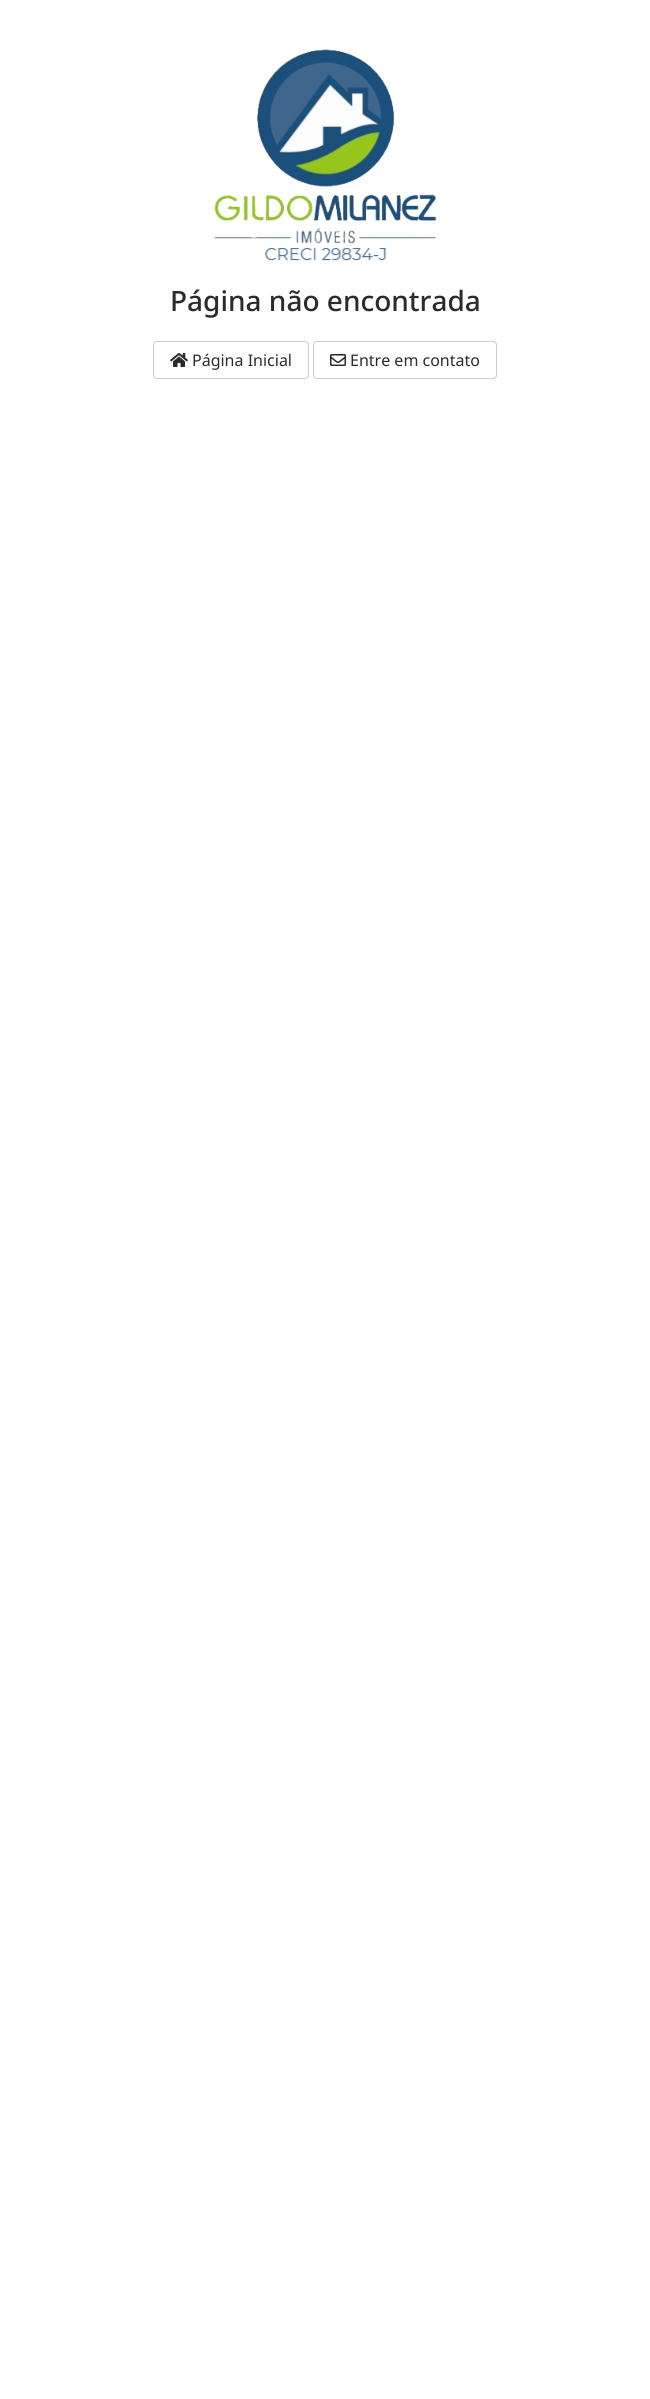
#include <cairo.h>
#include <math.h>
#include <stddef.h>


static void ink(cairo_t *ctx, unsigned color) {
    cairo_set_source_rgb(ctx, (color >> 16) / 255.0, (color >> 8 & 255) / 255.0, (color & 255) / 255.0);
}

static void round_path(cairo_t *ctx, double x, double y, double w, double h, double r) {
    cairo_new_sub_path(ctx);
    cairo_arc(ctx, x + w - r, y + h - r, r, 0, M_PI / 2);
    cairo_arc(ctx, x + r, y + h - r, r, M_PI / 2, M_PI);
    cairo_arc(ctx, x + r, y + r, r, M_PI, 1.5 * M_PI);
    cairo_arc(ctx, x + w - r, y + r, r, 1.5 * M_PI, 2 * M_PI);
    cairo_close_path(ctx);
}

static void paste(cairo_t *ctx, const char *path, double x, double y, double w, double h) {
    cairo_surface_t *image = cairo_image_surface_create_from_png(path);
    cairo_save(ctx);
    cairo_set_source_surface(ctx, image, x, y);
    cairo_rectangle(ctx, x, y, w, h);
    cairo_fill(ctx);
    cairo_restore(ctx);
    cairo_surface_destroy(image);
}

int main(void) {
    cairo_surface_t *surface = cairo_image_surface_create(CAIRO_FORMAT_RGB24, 650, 2399);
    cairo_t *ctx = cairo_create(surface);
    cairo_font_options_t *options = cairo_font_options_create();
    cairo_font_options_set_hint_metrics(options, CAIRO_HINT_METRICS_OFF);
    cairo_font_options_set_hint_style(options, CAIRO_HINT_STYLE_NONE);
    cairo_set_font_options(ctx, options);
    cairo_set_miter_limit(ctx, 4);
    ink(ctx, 0xFFFFFF);
    cairo_paint(ctx);
    paste(ctx, "media/1.png", 214, 49, 223, 212);
    cairo_select_font_face(ctx, "Noto Sans Medium", CAIRO_FONT_SLANT_NORMAL, CAIRO_FONT_WEIGHT_NORMAL);
    cairo_set_font_size(ctx, 28);
    ink(ctx, 0x292B2C);
    cairo_move_to(ctx, 170, 311);
    cairo_show_text(ctx, "Página não encontrada");
    round_path(ctx, 153.5, 341.5, 155, 37, 3.5);
    ink(ctx, 0xCCCCCC);
    cairo_set_line_width(ctx, 1);
    cairo_stroke(ctx);
    paste(ctx, "media/2.png", 170, 353, 18, 14);
    cairo_select_font_face(ctx, "Noto Sans", CAIRO_FONT_SLANT_NORMAL, CAIRO_FONT_WEIGHT_NORMAL);
    cairo_set_font_size(ctx, 16);
    ink(ctx, 0x292B2C);
    cairo_move_to(ctx, 192, 366);
    cairo_show_text(ctx, "Página Inicial");
    round_path(ctx, 313.5, 341.5, 183, 37, 3.5);
    ink(ctx, 0xCCCCCC);
    cairo_stroke(ctx);
    paste(ctx, "media/3.png", 330, 354, 16, 12);
    ink(ctx, 0x292B2C);
    cairo_move_to(ctx, 350, 366);
    cairo_show_text(ctx, "Entre em contato");
    cairo_surface_write_to_png(surface, "image.png");
    cairo_font_options_destroy(options);
    cairo_destroy(ctx);
    cairo_surface_destroy(surface);
    return 0;
}
